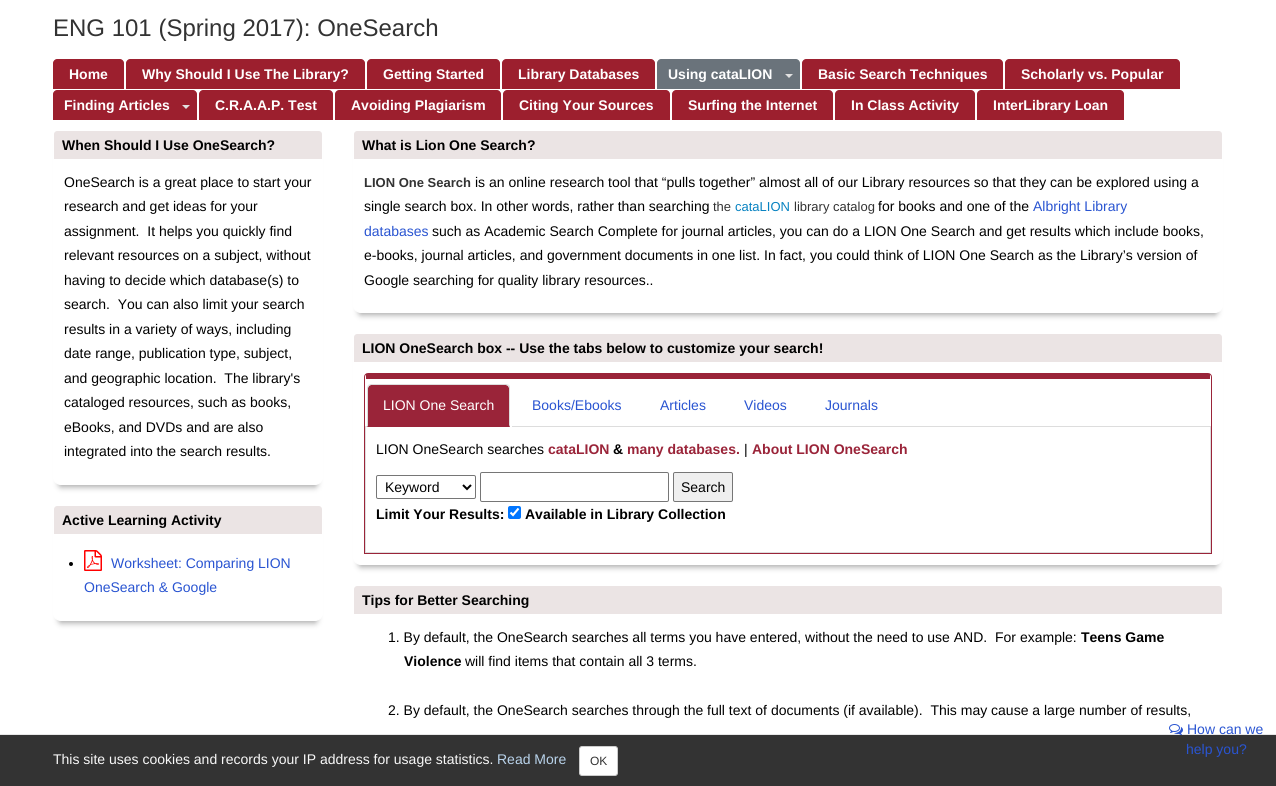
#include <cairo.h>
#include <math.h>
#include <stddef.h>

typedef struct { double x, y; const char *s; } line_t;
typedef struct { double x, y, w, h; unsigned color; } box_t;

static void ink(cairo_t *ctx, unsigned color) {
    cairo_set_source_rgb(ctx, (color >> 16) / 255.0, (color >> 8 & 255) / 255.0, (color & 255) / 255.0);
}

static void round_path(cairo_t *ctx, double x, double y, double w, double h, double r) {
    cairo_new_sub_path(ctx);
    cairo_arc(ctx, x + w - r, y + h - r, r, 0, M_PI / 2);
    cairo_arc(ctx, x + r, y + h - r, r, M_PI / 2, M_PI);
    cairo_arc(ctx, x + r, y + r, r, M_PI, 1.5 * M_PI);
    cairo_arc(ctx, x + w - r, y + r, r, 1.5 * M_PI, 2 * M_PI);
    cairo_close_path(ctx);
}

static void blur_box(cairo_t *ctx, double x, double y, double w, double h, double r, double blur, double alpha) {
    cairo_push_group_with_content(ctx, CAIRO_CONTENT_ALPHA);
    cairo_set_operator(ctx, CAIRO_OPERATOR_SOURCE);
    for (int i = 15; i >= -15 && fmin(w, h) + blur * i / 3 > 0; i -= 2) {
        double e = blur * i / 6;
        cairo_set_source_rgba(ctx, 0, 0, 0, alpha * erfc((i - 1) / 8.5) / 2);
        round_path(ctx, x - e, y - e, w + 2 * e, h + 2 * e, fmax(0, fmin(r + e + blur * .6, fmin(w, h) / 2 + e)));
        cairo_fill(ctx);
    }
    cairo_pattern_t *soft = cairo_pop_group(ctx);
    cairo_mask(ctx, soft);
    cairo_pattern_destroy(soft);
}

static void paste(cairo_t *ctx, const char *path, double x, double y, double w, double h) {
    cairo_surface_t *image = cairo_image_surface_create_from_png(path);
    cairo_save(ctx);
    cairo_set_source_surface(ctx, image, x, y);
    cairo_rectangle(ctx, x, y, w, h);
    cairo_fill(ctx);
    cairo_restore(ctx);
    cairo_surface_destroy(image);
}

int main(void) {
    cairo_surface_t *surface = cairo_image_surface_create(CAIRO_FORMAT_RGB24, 1276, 786);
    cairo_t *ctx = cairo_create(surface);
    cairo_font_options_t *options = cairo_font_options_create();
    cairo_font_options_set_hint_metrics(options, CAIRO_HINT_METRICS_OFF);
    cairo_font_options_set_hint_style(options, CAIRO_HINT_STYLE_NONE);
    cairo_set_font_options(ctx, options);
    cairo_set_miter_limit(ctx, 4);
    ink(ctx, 0xFFFFFF);
    cairo_paint(ctx);
    cairo_select_font_face(ctx, "Liberation Sans", CAIRO_FONT_SLANT_NORMAL, CAIRO_FONT_WEIGHT_NORMAL);
    cairo_set_font_size(ctx, 24);
    ink(ctx, 0x333333);
    cairo_move_to(ctx, 53, 36);
    cairo_show_text(ctx, "ENG 101 (Spring 2017): OneSearch");
    ink(ctx, 0x9C1F2E);
    cairo_new_path(ctx);
    cairo_move_to(ctx, 57, 59);
    cairo_line_to(ctx, 120, 59);
    cairo_curve_to(ctx, 122, 59, 124, 61, 124, 63);
    cairo_line_to(ctx, 124, 89);
    cairo_line_to(ctx, 53, 89);
    cairo_line_to(ctx, 53, 63);
    cairo_curve_to(ctx, 53, 61, 55, 59, 57, 59);
    cairo_close_path(ctx);
    cairo_fill(ctx);
    cairo_select_font_face(ctx, "Liberation Sans", CAIRO_FONT_SLANT_NORMAL, CAIRO_FONT_WEIGHT_BOLD);
    cairo_set_font_size(ctx, 14);
    ink(ctx, 0xFFFFFF);
    cairo_move_to(ctx, 69, 79);
    cairo_show_text(ctx, "Home");
    ink(ctx, 0x9C1F2E);
    cairo_new_path(ctx);
    cairo_move_to(ctx, 130, 59);
    cairo_line_to(ctx, 361, 59);
    cairo_curve_to(ctx, 363, 59, 365, 61, 365, 63);
    cairo_line_to(ctx, 365, 89);
    cairo_line_to(ctx, 126, 89);
    cairo_line_to(ctx, 126, 63);
    cairo_curve_to(ctx, 126, 61, 128, 59, 130, 59);
    cairo_close_path(ctx);
    cairo_fill(ctx);
    ink(ctx, 0xFFFFFF);
    cairo_move_to(ctx, 142, 79);
    cairo_show_text(ctx, "Why Should I Use The Library?");
    ink(ctx, 0x9C1F2E);
    cairo_new_path(ctx);
    cairo_move_to(ctx, 371, 59);
    cairo_line_to(ctx, 496, 59);
    cairo_curve_to(ctx, 498, 59, 500, 61, 500, 63);
    cairo_line_to(ctx, 500, 89);
    cairo_line_to(ctx, 367, 89);
    cairo_line_to(ctx, 367, 63);
    cairo_curve_to(ctx, 367, 61, 369, 59, 371, 59);
    cairo_close_path(ctx);
    cairo_fill(ctx);
    ink(ctx, 0xFFFFFF);
    cairo_move_to(ctx, 383, 79);
    cairo_show_text(ctx, "Getting Started");
    ink(ctx, 0x9C1F2E);
    cairo_new_path(ctx);
    cairo_move_to(ctx, 506, 59);
    cairo_line_to(ctx, 651, 59);
    cairo_curve_to(ctx, 653, 59, 655, 61, 655, 63);
    cairo_line_to(ctx, 655, 89);
    cairo_line_to(ctx, 502, 89);
    cairo_line_to(ctx, 502, 63);
    cairo_curve_to(ctx, 502, 61, 504, 59, 506, 59);
    cairo_close_path(ctx);
    cairo_fill(ctx);
    ink(ctx, 0xFFFFFF);
    cairo_move_to(ctx, 518, 79);
    cairo_show_text(ctx, "Library Databases");
    ink(ctx, 0x6A737B);
    cairo_new_path(ctx);
    cairo_move_to(ctx, 661, 59);
    cairo_line_to(ctx, 779, 59);
    cairo_line_to(ctx, 779, 89);
    cairo_line_to(ctx, 657, 89);
    cairo_line_to(ctx, 657, 63);
    cairo_curve_to(ctx, 657, 61, 659, 59, 661, 59);
    cairo_close_path(ctx);
    cairo_fill(ctx);
    ink(ctx, 0xFFFFFF);
    cairo_move_to(ctx, 668, 79);
    cairo_show_text(ctx, "Using cataLION");
    ink(ctx, 0x6A737B);
    cairo_new_path(ctx);
    cairo_move_to(ctx, 779, 59);
    cairo_line_to(ctx, 796, 59);
    cairo_curve_to(ctx, 798, 59, 800, 61, 800, 63);
    cairo_line_to(ctx, 800, 89);
    cairo_line_to(ctx, 779, 89);
    cairo_close_path(ctx);
    cairo_fill(ctx);
    ink(ctx, 0xE1E1E1);
    cairo_new_path(ctx);
    cairo_move_to(ctx, 785, 74);
    cairo_line_to(ctx, 793, 74);
    cairo_line_to(ctx, 789, 78);
    cairo_close_path(ctx);
    cairo_fill(ctx);
    ink(ctx, 0x9C1F2E);
    cairo_new_path(ctx);
    cairo_move_to(ctx, 806, 59);
    cairo_line_to(ctx, 999, 59);
    cairo_curve_to(ctx, 1001, 59, 1003, 61, 1003, 63);
    cairo_line_to(ctx, 1003, 89);
    cairo_line_to(ctx, 802, 89);
    cairo_line_to(ctx, 802, 63);
    cairo_curve_to(ctx, 802, 61, 804, 59, 806, 59);
    cairo_close_path(ctx);
    cairo_fill(ctx);
    ink(ctx, 0xFFFFFF);
    cairo_move_to(ctx, 818, 79);
    cairo_show_text(ctx, "Basic Search Techniques");
    ink(ctx, 0x9C1F2E);
    cairo_new_path(ctx);
    cairo_move_to(ctx, 1009, 59);
    cairo_line_to(ctx, 1176, 59);
    cairo_curve_to(ctx, 1178, 59, 1180, 61, 1180, 63);
    cairo_line_to(ctx, 1180, 89);
    cairo_line_to(ctx, 1005, 89);
    cairo_line_to(ctx, 1005, 63);
    cairo_curve_to(ctx, 1005, 61, 1007, 59, 1009, 59);
    cairo_close_path(ctx);
    cairo_fill(ctx);
    ink(ctx, 0xFFFFFF);
    cairo_move_to(ctx, 1021, 79);
    cairo_show_text(ctx, "Scholarly vs. Popular");
    ink(ctx, 0x9C1F2E);
    cairo_new_path(ctx);
    cairo_move_to(ctx, 57, 90);
    cairo_line_to(ctx, 176, 90);
    cairo_line_to(ctx, 176, 120);
    cairo_line_to(ctx, 53, 120);
    cairo_line_to(ctx, 53, 94);
    cairo_curve_to(ctx, 53, 92, 55, 90, 57, 90);
    cairo_close_path(ctx);
    cairo_fill(ctx);
    ink(ctx, 0xFFFFFF);
    cairo_move_to(ctx, 64, 110);
    cairo_show_text(ctx, "Finding Articles");
    ink(ctx, 0x9C1F2E);
    cairo_new_path(ctx);
    cairo_move_to(ctx, 176, 90);
    cairo_line_to(ctx, 193, 90);
    cairo_curve_to(ctx, 195, 90, 197, 92, 197, 94);
    cairo_line_to(ctx, 197, 120);
    cairo_line_to(ctx, 176, 120);
    cairo_close_path(ctx);
    cairo_fill(ctx);
    ink(ctx, 0xE1E1E1);
    cairo_new_path(ctx);
    cairo_move_to(ctx, 182, 105);
    cairo_line_to(ctx, 190, 105);
    cairo_line_to(ctx, 186, 109);
    cairo_close_path(ctx);
    cairo_fill(ctx);
    ink(ctx, 0x9C1F2E);
    cairo_new_path(ctx);
    cairo_move_to(ctx, 203, 90);
    cairo_line_to(ctx, 329, 90);
    cairo_curve_to(ctx, 331, 90, 333, 92, 333, 94);
    cairo_line_to(ctx, 333, 120);
    cairo_line_to(ctx, 199, 120);
    cairo_line_to(ctx, 199, 94);
    cairo_curve_to(ctx, 199, 92, 201, 90, 203, 90);
    cairo_close_path(ctx);
    cairo_fill(ctx);
    ink(ctx, 0xFFFFFF);
    cairo_move_to(ctx, 215, 110);
    cairo_show_text(ctx, "C.R.A.A.P. Test");
    ink(ctx, 0x9C1F2E);
    cairo_new_path(ctx);
    cairo_move_to(ctx, 339, 90);
    cairo_line_to(ctx, 497, 90);
    cairo_curve_to(ctx, 499, 90, 501, 92, 501, 94);
    cairo_line_to(ctx, 501, 120);
    cairo_line_to(ctx, 335, 120);
    cairo_line_to(ctx, 335, 94);
    cairo_curve_to(ctx, 335, 92, 337, 90, 339, 90);
    cairo_close_path(ctx);
    cairo_fill(ctx);
    ink(ctx, 0xFFFFFF);
    cairo_move_to(ctx, 351, 110);
    cairo_show_text(ctx, "Avoiding Plagiarism");
    ink(ctx, 0x9C1F2E);
    cairo_new_path(ctx);
    cairo_move_to(ctx, 507, 90);
    cairo_line_to(ctx, 666, 90);
    cairo_curve_to(ctx, 668, 90, 670, 92, 670, 94);
    cairo_line_to(ctx, 670, 120);
    cairo_line_to(ctx, 503, 120);
    cairo_line_to(ctx, 503, 94);
    cairo_curve_to(ctx, 503, 92, 505, 90, 507, 90);
    cairo_close_path(ctx);
    cairo_fill(ctx);
    ink(ctx, 0xFFFFFF);
    cairo_move_to(ctx, 519, 110);
    cairo_show_text(ctx, "Citing Your Sources");
    ink(ctx, 0x9C1F2E);
    cairo_new_path(ctx);
    cairo_move_to(ctx, 676, 90);
    cairo_line_to(ctx, 829, 90);
    cairo_curve_to(ctx, 831, 90, 833, 92, 833, 94);
    cairo_line_to(ctx, 833, 120);
    cairo_line_to(ctx, 672, 120);
    cairo_line_to(ctx, 672, 94);
    cairo_curve_to(ctx, 672, 92, 674, 90, 676, 90);
    cairo_close_path(ctx);
    cairo_fill(ctx);
    ink(ctx, 0xFFFFFF);
    cairo_move_to(ctx, 688, 110);
    cairo_show_text(ctx, "Surfing the Internet");
    ink(ctx, 0x9C1F2E);
    cairo_new_path(ctx);
    cairo_move_to(ctx, 839, 90);
    cairo_line_to(ctx, 971, 90);
    cairo_curve_to(ctx, 973, 90, 975, 92, 975, 94);
    cairo_line_to(ctx, 975, 120);
    cairo_line_to(ctx, 835, 120);
    cairo_line_to(ctx, 835, 94);
    cairo_curve_to(ctx, 835, 92, 837, 90, 839, 90);
    cairo_close_path(ctx);
    cairo_fill(ctx);
    ink(ctx, 0xFFFFFF);
    cairo_move_to(ctx, 851, 110);
    cairo_show_text(ctx, "In Class Activity");
    ink(ctx, 0x9C1F2E);
    cairo_new_path(ctx);
    cairo_move_to(ctx, 981, 90);
    cairo_line_to(ctx, 1120, 90);
    cairo_curve_to(ctx, 1122, 90, 1124, 92, 1124, 94);
    cairo_line_to(ctx, 1124, 120);
    cairo_line_to(ctx, 977, 120);
    cairo_line_to(ctx, 977, 94);
    cairo_curve_to(ctx, 977, 92, 979, 90, 981, 90);
    cairo_close_path(ctx);
    cairo_fill(ctx);
    ink(ctx, 0xFFFFFF);
    cairo_move_to(ctx, 993, 110);
    cairo_show_text(ctx, "InterLibrary Loan");
    ink(ctx, 0xAAAAAA);
    blur_box(ctx, 59, 144, 258, 343, 2, 3, 1);
    ink(ctx, 0xFFFFFF);
    round_path(ctx, 53.5, 130.5, 269, 354, 7.5);
    cairo_fill_preserve(ctx);
    cairo_set_line_width(ctx, 1);
    cairo_stroke(ctx);
    ink(ctx, 0xEBE4E4);
    cairo_new_path(ctx);
    cairo_move_to(ctx, 57, 131);
    cairo_line_to(ctx, 319, 131);
    cairo_curve_to(ctx, 320.5, 131, 322, 132.5, 322, 134);
    cairo_line_to(ctx, 322, 160);
    cairo_line_to(ctx, 54, 160);
    cairo_line_to(ctx, 54, 134);
    cairo_curve_to(ctx, 54, 132.5, 55.5, 131, 57, 131);
    cairo_close_path(ctx);
    cairo_fill(ctx);
    ink(ctx, 0xFFFFFF);
    cairo_rectangle(ctx, 54, 159, 268, 1);
    cairo_fill(ctx);
    ink(ctx, 0x000000);
    cairo_move_to(ctx, 62, 150);
    cairo_show_text(ctx, "When Should I Use OneSearch?");
    cairo_select_font_face(ctx, "Liberation Sans", CAIRO_FONT_SLANT_NORMAL, CAIRO_FONT_WEIGHT_NORMAL);
    {
        static const line_t items[] = {
            {64, 187, "OneSearch is a great place to start your"},
            {64, 211, "research and get ideas for your"},
            {64, 236, "assignment.  It helps you quickly find"},
            {64, 260, "relevant resources on a subject, without"},
            {64, 285, "having to decide which database(s) to"},
            {64, 309, "search.  You can also limit your search"},
            {64, 334, "results in a variety of ways, including"},
            {64, 358, "date range, publication type, subject,"},
            {64, 383, "and geographic location.  The library's"},
            {64, 407, "cataloged resources, such as books,"},
            {64, 432, "eBooks, and DVDs and are also"},
            {64, 456, "integrated into the search results."},
        };
        for (size_t i = 0; i < sizeof items / sizeof *items; i++) {
            cairo_move_to(ctx, items[i].x, items[i].y);
            cairo_show_text(ctx, items[i].s);
        }
    }
    ink(ctx, 0xAAAAAA);
    blur_box(ctx, 59, 519, 258, 104, 2, 3, 1);
    ink(ctx, 0xFFFFFF);
    round_path(ctx, 53.5, 505.5, 269, 115, 7.5);
    cairo_fill_preserve(ctx);
    cairo_stroke(ctx);
    ink(ctx, 0xEBE4E4);
    cairo_new_path(ctx);
    cairo_move_to(ctx, 57, 506);
    cairo_line_to(ctx, 319, 506);
    cairo_curve_to(ctx, 320.5, 506, 322, 507.5, 322, 509);
    cairo_line_to(ctx, 322, 535);
    cairo_line_to(ctx, 54, 535);
    cairo_line_to(ctx, 54, 509);
    cairo_curve_to(ctx, 54, 507.5, 55.5, 506, 57, 506);
    cairo_close_path(ctx);
    cairo_fill(ctx);
    ink(ctx, 0xFFFFFF);
    cairo_rectangle(ctx, 54, 534, 268, 1);
    cairo_fill(ctx);
    cairo_select_font_face(ctx, "Liberation Sans", CAIRO_FONT_SLANT_NORMAL, CAIRO_FONT_WEIGHT_BOLD);
    ink(ctx, 0x000000);
    cairo_move_to(ctx, 62, 525);
    cairo_show_text(ctx, "Active Learning Activity");
    cairo_new_path(ctx);
    cairo_arc(ctx, 71, 564, 2, 0, 2 * M_PI);
    cairo_fill(ctx);
    paste(ctx, "media/1.png", 84, 550, 18, 21);
    cairo_select_font_face(ctx, "Liberation Sans", CAIRO_FONT_SLANT_NORMAL, CAIRO_FONT_WEIGHT_NORMAL);
    ink(ctx, 0x2954D1);
    cairo_move_to(ctx, 111, 568);
    cairo_show_text(ctx, "Worksheet: Comparing LION");
    cairo_move_to(ctx, 84, 592);
    cairo_show_text(ctx, "OneSearch & Google");
    ink(ctx, 0xAAAAAA);
    blur_box(ctx, 359, 144, 858, 171, 2, 3, 1);
    ink(ctx, 0xFFFFFF);
    round_path(ctx, 353.5, 130.5, 869, 182, 7.5);
    cairo_fill_preserve(ctx);
    cairo_stroke(ctx);
    ink(ctx, 0xEBE4E4);
    cairo_new_path(ctx);
    cairo_move_to(ctx, 357, 131);
    cairo_line_to(ctx, 1219, 131);
    cairo_curve_to(ctx, 1220.5, 131, 1222, 132.5, 1222, 134);
    cairo_line_to(ctx, 1222, 160);
    cairo_line_to(ctx, 354, 160);
    cairo_line_to(ctx, 354, 134);
    cairo_curve_to(ctx, 354, 132.5, 355.5, 131, 357, 131);
    cairo_close_path(ctx);
    cairo_fill(ctx);
    ink(ctx, 0xFFFFFF);
    cairo_rectangle(ctx, 354, 159, 868, 1);
    cairo_fill(ctx);
    cairo_select_font_face(ctx, "Liberation Sans", CAIRO_FONT_SLANT_NORMAL, CAIRO_FONT_WEIGHT_BOLD);
    ink(ctx, 0x000000);
    cairo_move_to(ctx, 362, 150);
    cairo_show_text(ctx, "What is Lion One Search?");
    cairo_set_font_size(ctx, 13);
    ink(ctx, 0x333333);
    cairo_move_to(ctx, 364, 187);
    cairo_show_text(ctx, "LION One Search");
    cairo_select_font_face(ctx, "Liberation Sans", CAIRO_FONT_SLANT_NORMAL, CAIRO_FONT_WEIGHT_NORMAL);
    cairo_set_font_size(ctx, 14);
    ink(ctx, 0x000000);
    cairo_move_to(ctx, 475, 187);
    cairo_show_text(ctx, "is an online research tool that “pulls together” almost all of our Library resources so that they can be explored using a");
    cairo_move_to(ctx, 364, 211);
    cairo_show_text(ctx, "single search box. In other words, rather than searching");
    cairo_set_font_size(ctx, 13);
    ink(ctx, 0x333333);
    cairo_move_to(ctx, 713, 211);
    cairo_show_text(ctx, "the");
    ink(ctx, 0x0782C1);
    cairo_move_to(ctx, 735, 211);
    cairo_show_text(ctx, "cataLION");
    ink(ctx, 0x333333);
    cairo_move_to(ctx, 794, 211);
    cairo_show_text(ctx, "library catalog");
    cairo_set_font_size(ctx, 14);
    ink(ctx, 0x000000);
    cairo_move_to(ctx, 878, 211);
    cairo_show_text(ctx, "for books and one of the");
    ink(ctx, 0x2954D1);
    cairo_move_to(ctx, 1033, 211);
    cairo_show_text(ctx, "Albright Library");
    cairo_move_to(ctx, 364, 236);
    cairo_show_text(ctx, "databases");
    ink(ctx, 0x000000);
    {
        static const line_t items[] = {
            {432, 236, "such as Academic Search Complete for journal articles, you can do a LION One Search and get results which include books,"},
            {364, 260, "e-books, journal articles, and government documents in one list. In fact, you could think of LION One Search as the Library’s version of"},
            {364, 285, "Google searching for quality library resources.."},
        };
        for (size_t i = 0; i < sizeof items / sizeof *items; i++) {
            cairo_move_to(ctx, items[i].x, items[i].y);
            cairo_show_text(ctx, items[i].s);
        }
    }
    ink(ctx, 0xAAAAAA);
    blur_box(ctx, 359, 347, 858, 220, 2, 3, 1);
    ink(ctx, 0xFFFFFF);
    round_path(ctx, 353.5, 333.5, 869, 231, 7.5);
    cairo_fill_preserve(ctx);
    cairo_stroke(ctx);
    ink(ctx, 0xEBE4E4);
    cairo_new_path(ctx);
    cairo_move_to(ctx, 357, 334);
    cairo_line_to(ctx, 1219, 334);
    cairo_curve_to(ctx, 1220.5, 334, 1222, 335.5, 1222, 337);
    cairo_line_to(ctx, 1222, 363);
    cairo_line_to(ctx, 354, 363);
    cairo_line_to(ctx, 354, 337);
    cairo_curve_to(ctx, 354, 335.5, 355.5, 334, 357, 334);
    cairo_close_path(ctx);
    cairo_fill(ctx);
    ink(ctx, 0xFFFFFF);
    cairo_rectangle(ctx, 354, 362, 868, 1);
    cairo_fill(ctx);
    cairo_select_font_face(ctx, "Liberation Sans", CAIRO_FONT_SLANT_NORMAL, CAIRO_FONT_WEIGHT_BOLD);
    ink(ctx, 0x000000);
    cairo_move_to(ctx, 362, 353);
    cairo_show_text(ctx, "LION OneSearch box -- Use the tabs below to customize your search!");
    cairo_new_path(ctx);
    cairo_move_to(ctx, 368, 373.5);
    cairo_line_to(ctx, 1208, 373.5);
    cairo_curve_to(ctx, 1210, 373.5, 1211.5, 375, 1211.5, 377);
    cairo_line_to(ctx, 1211.5, 553.5);
    cairo_line_to(ctx, 364.5, 553.5);
    cairo_line_to(ctx, 364.5, 377);
    cairo_curve_to(ctx, 364.5, 375, 366, 373.5, 368, 373.5);
    cairo_close_path(ctx);
    ink(ctx, 0x9A2439);
    cairo_stroke(ctx);
    {
        static const box_t items[] = {
            {366, 374, 844, 5, 0x9A2439},
            {365, 426, 846, 1, 0xDDDDDD},
            {367, 426, 145, 1, 0xFFFFFF},
        };
        for (size_t i = 0; i < sizeof items / sizeof *items; i++) {
            ink(ctx, items[i].color);
            cairo_rectangle(ctx, items[i].x, items[i].y, items[i].w, items[i].h);
            cairo_fill(ctx);
        }
    }
    ink(ctx, 0x9A2439);
    cairo_new_path(ctx);
    cairo_move_to(ctx, 371, 385);
    cairo_line_to(ctx, 506, 385);
    cairo_curve_to(ctx, 507.5, 385, 509, 386.5, 509, 388);
    cairo_line_to(ctx, 509, 425);
    cairo_line_to(ctx, 368, 425);
    cairo_line_to(ctx, 368, 388);
    cairo_curve_to(ctx, 368, 386.5, 369.5, 385, 371, 385);
    cairo_close_path(ctx);
    cairo_fill(ctx);
    ink(ctx, 0xDDDDDD);
    cairo_new_path(ctx);
    cairo_move_to(ctx, 371, 384);
    cairo_line_to(ctx, 368, 385);
    cairo_line_to(ctx, 369, 386);
    cairo_line_to(ctx, 371, 385);
    cairo_line_to(ctx, 506, 385);
    cairo_line_to(ctx, 508, 386);
    cairo_line_to(ctx, 509, 385);
    cairo_line_to(ctx, 506, 384);
    cairo_close_path(ctx);
    cairo_fill(ctx);
    cairo_new_path(ctx);
    cairo_move_to(ctx, 510, 427);
    cairo_line_to(ctx, 510, 388);
    cairo_curve_to(ctx, 510, 387, 510, 386, 509, 385);
    cairo_line_to(ctx, 508, 386);
    cairo_line_to(ctx, 509, 388);
    cairo_line_to(ctx, 509, 425);
    cairo_close_path(ctx);
    cairo_fill(ctx);
    ink(ctx, 0x9A2439);
    cairo_new_path(ctx);
    cairo_move_to(ctx, 510, 427);
    cairo_line_to(ctx, 509, 425);
    cairo_line_to(ctx, 368, 425);
    cairo_line_to(ctx, 367, 427);
    cairo_close_path(ctx);
    cairo_fill(ctx);
    ink(ctx, 0xDDDDDD);
    cairo_new_path(ctx);
    cairo_move_to(ctx, 367, 427);
    cairo_line_to(ctx, 368, 425);
    cairo_line_to(ctx, 368, 388);
    cairo_line_to(ctx, 369, 386);
    cairo_line_to(ctx, 368, 385);
    cairo_line_to(ctx, 367, 388);
    cairo_close_path(ctx);
    cairo_fill(ctx);
    cairo_select_font_face(ctx, "Liberation Sans", CAIRO_FONT_SLANT_NORMAL, CAIRO_FONT_WEIGHT_NORMAL);
    ink(ctx, 0xFFFFFF);
    cairo_move_to(ctx, 383, 410);
    cairo_show_text(ctx, "LION One Search");
    ink(ctx, 0x2954D1);
    {
        static const line_t items[] = {
            {532, 410, "Books/Ebooks"},
            {660, 410, "Articles"},
            {744, 410, "Videos"},
            {825, 410, "Journals"},
        };
        for (size_t i = 0; i < sizeof items / sizeof *items; i++) {
            cairo_move_to(ctx, items[i].x, items[i].y);
            cairo_show_text(ctx, items[i].s);
        }
    }
    {
        static const box_t items[] = {
            {1210, 427, 1, 126, 0xDDDDDD},
            {365, 552, 846, 1, 0xDDDDDD},
            {365, 427, 1, 126, 0xDDDDDD},
        };
        for (size_t i = 0; i < sizeof items / sizeof *items; i++) {
            ink(ctx, items[i].color);
            cairo_rectangle(ctx, items[i].x, items[i].y, items[i].w, items[i].h);
            cairo_fill(ctx);
        }
    }
    ink(ctx, 0x000000);
    cairo_move_to(ctx, 376, 454);
    cairo_show_text(ctx, "LION OneSearch searches");
    cairo_select_font_face(ctx, "Liberation Sans", CAIRO_FONT_SLANT_NORMAL, CAIRO_FONT_WEIGHT_BOLD);
    ink(ctx, 0x9A2439);
    cairo_move_to(ctx, 548, 454);
    cairo_show_text(ctx, "cataLION");
    ink(ctx, 0x000000);
    cairo_move_to(ctx, 613, 454);
    cairo_show_text(ctx, "&");
    ink(ctx, 0x9A2439);
    cairo_move_to(ctx, 627, 454);
    cairo_show_text(ctx, "many databases.");
    cairo_select_font_face(ctx, "Liberation Sans", CAIRO_FONT_SLANT_NORMAL, CAIRO_FONT_WEIGHT_NORMAL);
    ink(ctx, 0x000000);
    cairo_move_to(ctx, 744, 454);
    cairo_show_text(ctx, "|");
    cairo_select_font_face(ctx, "Liberation Sans", CAIRO_FONT_SLANT_NORMAL, CAIRO_FONT_WEIGHT_BOLD);
    ink(ctx, 0x9A2439);
    cairo_move_to(ctx, 752, 454);
    cairo_show_text(ctx, "About LION OneSearch");
    round_path(ctx, 376.5, 475.5, 99, 23, 1.5);
    ink(ctx, 0x767676);
    cairo_stroke(ctx);
    cairo_new_path(ctx);
    cairo_move_to(ctx, 463, 485);
    cairo_line_to(ctx, 467, 489);
    cairo_line_to(ctx, 471, 485);
    ink(ctx, 0x000000);
    cairo_set_line_width(ctx, 2);
    cairo_stroke(ctx);
    cairo_select_font_face(ctx, "Liberation Sans", CAIRO_FONT_SLANT_NORMAL, CAIRO_FONT_WEIGHT_NORMAL);
    cairo_move_to(ctx, 385, 492);
    cairo_show_text(ctx, "Keyword");
    round_path(ctx, 480.5, 472.5, 188, 29, 1.5);
    ink(ctx, 0x767676);
    cairo_set_line_width(ctx, 1);
    cairo_stroke(ctx);
    ink(ctx, 0xEFEFEF);
    round_path(ctx, 673.5, 472.5, 59, 29, 1.5);
    cairo_fill_preserve(ctx);
    ink(ctx, 0x767676);
    cairo_stroke(ctx);
    ink(ctx, 0x000000);
    cairo_move_to(ctx, 681, 492);
    cairo_show_text(ctx, "Search");
    cairo_select_font_face(ctx, "Liberation Sans", CAIRO_FONT_SLANT_NORMAL, CAIRO_FONT_WEIGHT_BOLD);
    cairo_move_to(ctx, 376, 519);
    cairo_show_text(ctx, "Limit Your Results:");
    ink(ctx, 0x0075FF);
    round_path(ctx, 508, 506, 13, 13, 2);
    cairo_fill(ctx);
    cairo_new_path(ctx);
    cairo_move_to(ctx, 510.5, 512.5);
    cairo_line_to(ctx, 513, 515);
    cairo_line_to(ctx, 518.5, 508.5);
    ink(ctx, 0xFFFFFF);
    cairo_set_line_width(ctx, 2.1);
    cairo_stroke(ctx);
    ink(ctx, 0x000000);
    cairo_move_to(ctx, 525, 519);
    cairo_show_text(ctx, "Available in Library Collection");
    ink(ctx, 0xEBE4E4);
    cairo_new_path(ctx);
    cairo_move_to(ctx, 357, 586);
    cairo_line_to(ctx, 1219, 586);
    cairo_curve_to(ctx, 1220.5, 586, 1222, 587.5, 1222, 589);
    cairo_line_to(ctx, 1222, 615);
    cairo_line_to(ctx, 354, 615);
    cairo_line_to(ctx, 354, 589);
    cairo_curve_to(ctx, 354, 587.5, 355.5, 586, 357, 586);
    cairo_close_path(ctx);
    cairo_fill(ctx);
    ink(ctx, 0xFFFFFF);
    cairo_rectangle(ctx, 354, 614, 868, 1);
    cairo_fill(ctx);
    ink(ctx, 0x000000);
    cairo_move_to(ctx, 362, 605);
    cairo_show_text(ctx, "Tips for Better Searching");
    cairo_select_font_face(ctx, "Liberation Sans", CAIRO_FONT_SLANT_NORMAL, CAIRO_FONT_WEIGHT_NORMAL);
    cairo_move_to(ctx, 388, 642);
    cairo_show_text(ctx, "1. By default, the OneSearch searches all terms you have entered, without the need to use AND.  For example:");
    cairo_select_font_face(ctx, "Liberation Sans", CAIRO_FONT_SLANT_NORMAL, CAIRO_FONT_WEIGHT_BOLD);
    cairo_move_to(ctx, 1081, 642);
    cairo_show_text(ctx, "Teens Game");
    cairo_move_to(ctx, 404, 666);
    cairo_show_text(ctx, "Violence");
    cairo_select_font_face(ctx, "Liberation Sans", CAIRO_FONT_SLANT_NORMAL, CAIRO_FONT_WEIGHT_NORMAL);
    cairo_move_to(ctx, 465, 666);
    cairo_show_text(ctx, "will find items that contain all 3 terms.");
    cairo_move_to(ctx, 388, 715);
    cairo_show_text(ctx, "2. By default, the OneSearch searches through the full text of documents (if available).  This may cause a large number of results,");
    ink(ctx, 0xE7E7E7);
    cairo_rectangle(ctx, 0, 734, 1276, 1);
    cairo_fill(ctx);
    paste(ctx, "media/2.png", 1169, 724, 14, 11);
    ink(ctx, 0x2954D1);
    cairo_move_to(ctx, 1187, 734);
    cairo_show_text(ctx, "How can we");
    ink(ctx, 0x333333);
    cairo_rectangle(ctx, 0, 735, 1276, 51);
    cairo_fill(ctx);
    ink(ctx, 0x2954D1);
    cairo_move_to(ctx, 1186, 754);
    cairo_show_text(ctx, "help you?");
    ink(ctx, 0xF8F8F8);
    cairo_move_to(ctx, 53, 764);
    cairo_show_text(ctx, "This site uses cookies and records your IP address for usage statistics.");
    ink(ctx, 0xB9D3EB);
    cairo_move_to(ctx, 497, 764);
    cairo_show_text(ctx, "Read More");
    ink(ctx, 0xFFFFFF);
    round_path(ctx, 579.5, 746.5, 38, 29, 2.5);
    cairo_fill_preserve(ctx);
    ink(ctx, 0xCCCCCC);
    cairo_set_line_width(ctx, 1);
    cairo_stroke(ctx);
    cairo_set_font_size(ctx, 12);
    ink(ctx, 0x333333);
    cairo_move_to(ctx, 590, 765);
    cairo_show_text(ctx, "OK");
    cairo_surface_write_to_png(surface, "image.png");
    cairo_font_options_destroy(options);
    cairo_destroy(ctx);
    cairo_surface_destroy(surface);
    return 0;
}
